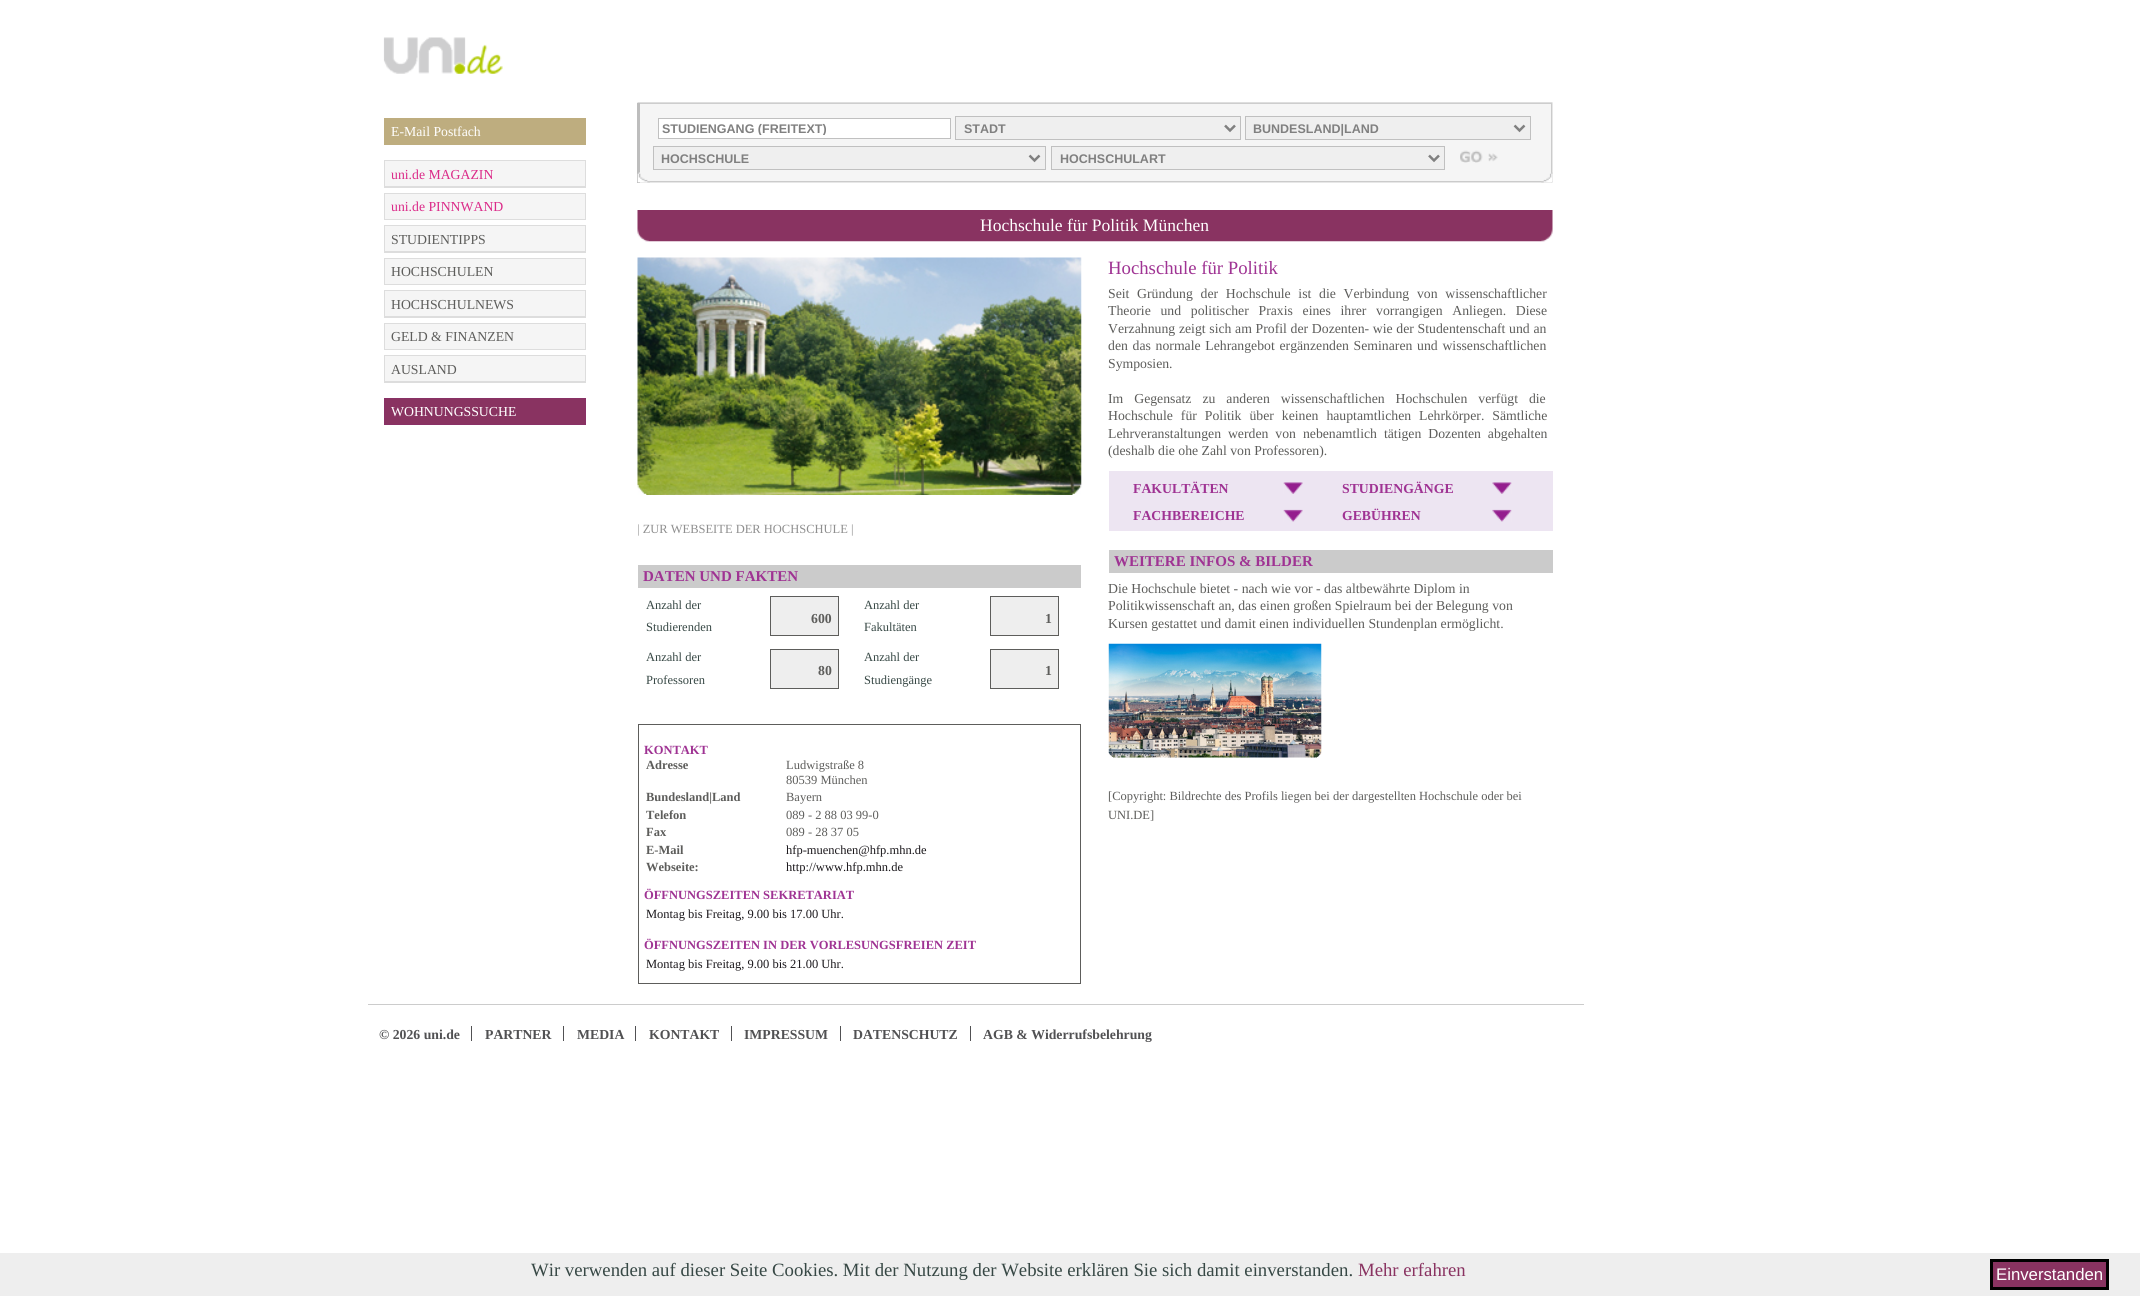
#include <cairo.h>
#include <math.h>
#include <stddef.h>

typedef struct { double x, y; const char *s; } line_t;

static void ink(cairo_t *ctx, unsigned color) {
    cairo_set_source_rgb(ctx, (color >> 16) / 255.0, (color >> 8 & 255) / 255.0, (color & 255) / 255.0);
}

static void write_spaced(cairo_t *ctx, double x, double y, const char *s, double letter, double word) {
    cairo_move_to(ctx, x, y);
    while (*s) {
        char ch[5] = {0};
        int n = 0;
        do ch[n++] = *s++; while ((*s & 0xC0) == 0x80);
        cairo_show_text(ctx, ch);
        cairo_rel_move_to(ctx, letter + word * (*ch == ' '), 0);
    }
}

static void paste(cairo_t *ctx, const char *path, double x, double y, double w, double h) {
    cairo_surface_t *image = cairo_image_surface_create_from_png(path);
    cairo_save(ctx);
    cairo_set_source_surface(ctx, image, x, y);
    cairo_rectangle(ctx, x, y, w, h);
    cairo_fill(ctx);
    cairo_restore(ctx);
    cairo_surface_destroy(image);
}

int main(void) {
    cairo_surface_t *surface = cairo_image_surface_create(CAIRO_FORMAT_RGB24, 2140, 1296);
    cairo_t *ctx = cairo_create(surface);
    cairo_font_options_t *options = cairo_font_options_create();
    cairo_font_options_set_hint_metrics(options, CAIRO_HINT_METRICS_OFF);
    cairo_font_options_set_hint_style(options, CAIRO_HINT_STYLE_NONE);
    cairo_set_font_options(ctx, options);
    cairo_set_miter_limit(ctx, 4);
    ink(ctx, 0xFFFFFF);
    cairo_paint(ctx);
    paste(ctx, "media/1.png", 383, 37, 120, 37);
    ink(ctx, 0xBEAD7F);
    cairo_rectangle(ctx, 384, 118, 202, 27);
    cairo_fill(ctx);
    cairo_select_font_face(ctx, "Liberation Serif", CAIRO_FONT_SLANT_NORMAL, CAIRO_FONT_WEIGHT_NORMAL);
    cairo_set_font_size(ctx, 13.75);
    ink(ctx, 0xFFFFFF);
    cairo_move_to(ctx, 391, 136);
    cairo_show_text(ctx, "E-Mail Postfach");
    ink(ctx, 0xDDDDDD);
    cairo_rectangle(ctx, 384, 160, 202, 28);
    cairo_fill(ctx);
    ink(ctx, 0xF5F5F5);
    cairo_rectangle(ctx, 385, 161, 200, 25);
    cairo_fill(ctx);
    ink(ctx, 0xDB2B89);
    cairo_move_to(ctx, 391, 179);
    cairo_show_text(ctx, "uni.de MAGAZIN");
    ink(ctx, 0xDDDDDD);
    cairo_rectangle(ctx, 384, 193, 202, 27);
    cairo_fill(ctx);
    ink(ctx, 0xF5F5F5);
    cairo_rectangle(ctx, 385, 194, 200, 25);
    cairo_fill(ctx);
    ink(ctx, 0xDB2B89);
    cairo_move_to(ctx, 391, 211);
    cairo_show_text(ctx, "uni.de PINNWAND");
    ink(ctx, 0xDDDDDD);
    cairo_rectangle(ctx, 384, 225, 202, 28);
    cairo_fill(ctx);
    ink(ctx, 0xF5F5F5);
    cairo_rectangle(ctx, 385, 226, 200, 25);
    cairo_fill(ctx);
    ink(ctx, 0x5D5D5B);
    cairo_move_to(ctx, 391, 244);
    cairo_show_text(ctx, "STUDIENTIPPS");
    ink(ctx, 0xDDDDDD);
    cairo_rectangle(ctx, 384, 258, 202, 27);
    cairo_fill(ctx);
    ink(ctx, 0xF5F5F5);
    cairo_rectangle(ctx, 385, 259, 200, 25);
    cairo_fill(ctx);
    ink(ctx, 0x5D5D5B);
    cairo_move_to(ctx, 391, 276);
    cairo_show_text(ctx, "HOCHSCHULEN");
    ink(ctx, 0xDDDDDD);
    cairo_rectangle(ctx, 384, 290, 202, 28);
    cairo_fill(ctx);
    ink(ctx, 0xF5F5F5);
    cairo_rectangle(ctx, 385, 291, 200, 25);
    cairo_fill(ctx);
    ink(ctx, 0x5D5D5B);
    cairo_move_to(ctx, 391, 309);
    cairo_show_text(ctx, "HOCHSCHULNEWS");
    ink(ctx, 0xDDDDDD);
    cairo_rectangle(ctx, 384, 323, 202, 27);
    cairo_fill(ctx);
    ink(ctx, 0xF5F5F5);
    cairo_rectangle(ctx, 385, 324, 200, 25);
    cairo_fill(ctx);
    ink(ctx, 0x5D5D5B);
    cairo_move_to(ctx, 391, 341);
    cairo_show_text(ctx, "GELD & FINANZEN");
    ink(ctx, 0xDDDDDD);
    cairo_rectangle(ctx, 384, 355, 202, 28);
    cairo_fill(ctx);
    ink(ctx, 0xF5F5F5);
    cairo_rectangle(ctx, 385, 356, 200, 25);
    cairo_fill(ctx);
    ink(ctx, 0x5D5D5B);
    cairo_move_to(ctx, 391, 374);
    cairo_show_text(ctx, "AUSLAND");
    ink(ctx, 0x893166);
    cairo_rectangle(ctx, 384, 398, 202, 27);
    cairo_fill(ctx);
    ink(ctx, 0x893361);
    cairo_rectangle(ctx, 385, 399, 200, 25);
    cairo_fill(ctx);
    ink(ctx, 0xFFFFFF);
    cairo_move_to(ctx, 391, 416);
    cairo_show_text(ctx, "WOHNUNGSSUCHE");
    paste(ctx, "media/2.png", 637, 102, 916, 2);
    ink(ctx, 0xF5F5F5);
    cairo_rectangle(ctx, 640, 104, 913, 79);
    cairo_fill(ctx);
    ink(ctx, 0xBDBDBD);
    cairo_rectangle(ctx, 637, 103, 3, 80);
    cairo_fill(ctx);
    paste(ctx, "media/3.png", 1551, 104, 2, 79);
    paste(ctx, "media/4.png", 640, 181, 913, 2);
    paste(ctx, "media/5.png", 637, 172, 13, 11);
    paste(ctx, "media/6.png", 1541, 172, 12, 11);
    ink(ctx, 0xFFFFFF);
    cairo_rectangle(ctx, 658.5, 118.5, 292, 20);
    cairo_fill_preserve(ctx);
    ink(ctx, 0xC0C0C0);
    cairo_set_line_width(ctx, 1);
    cairo_stroke(ctx);
    cairo_save(ctx);
    cairo_rectangle(ctx, 661, 121, 287, 14);
    cairo_clip(ctx);
    cairo_select_font_face(ctx, "Liberation Sans", CAIRO_FONT_SLANT_NORMAL, CAIRO_FONT_WEIGHT_BOLD);
    cairo_set_font_size(ctx, 12.5);
    ink(ctx, 0x808080);
    cairo_move_to(ctx, 662, 133);
    cairo_show_text(ctx, "STUDIENGANG (FREITEXT)");
    cairo_restore(ctx);
    ink(ctx, 0xEFEFEF);
    cairo_rectangle(ctx, 955.5, 116.5, 285, 23);
    cairo_fill_preserve(ctx);
    ink(ctx, 0xC0C0C0);
    cairo_stroke(ctx);
    cairo_new_path(ctx);
    cairo_move_to(ctx, 1225, 125.5);
    cairo_line_to(ctx, 1230, 130.5);
    cairo_line_to(ctx, 1235, 125.5);
    ink(ctx, 0x808080);
    cairo_set_line_width(ctx, 2.5);
    cairo_stroke(ctx);
    cairo_select_font_face(ctx, "Liberation Sans", CAIRO_FONT_SLANT_NORMAL, CAIRO_FONT_WEIGHT_BOLD);
    cairo_set_font_size(ctx, 12.5);
    cairo_move_to(ctx, 964, 133);
    cairo_show_text(ctx, "STADT");
    ink(ctx, 0xEFEFEF);
    cairo_rectangle(ctx, 1245.5, 116.5, 285, 23);
    cairo_fill_preserve(ctx);
    ink(ctx, 0xC0C0C0);
    cairo_set_line_width(ctx, 1);
    cairo_stroke(ctx);
    cairo_new_path(ctx);
    cairo_move_to(ctx, 1514.5, 125.5);
    cairo_line_to(ctx, 1519.5, 130.5);
    cairo_line_to(ctx, 1524.5, 125.5);
    ink(ctx, 0x808080);
    cairo_set_line_width(ctx, 2.5);
    cairo_stroke(ctx);
    cairo_move_to(ctx, 1253, 133);
    cairo_show_text(ctx, "BUNDESLAND|LAND");
    ink(ctx, 0xEFEFEF);
    cairo_rectangle(ctx, 653.5, 146.5, 392, 23);
    cairo_fill_preserve(ctx);
    ink(ctx, 0xC0C0C0);
    cairo_set_line_width(ctx, 1);
    cairo_stroke(ctx);
    cairo_new_path(ctx);
    cairo_move_to(ctx, 1029.5, 155.5);
    cairo_line_to(ctx, 1034.5, 160.5);
    cairo_line_to(ctx, 1039.5, 155.5);
    ink(ctx, 0x808080);
    cairo_set_line_width(ctx, 2.5);
    cairo_stroke(ctx);
    cairo_move_to(ctx, 661, 163);
    cairo_show_text(ctx, "HOCHSCHULE");
    ink(ctx, 0xEFEFEF);
    cairo_rectangle(ctx, 1051.5, 146.5, 393, 23);
    cairo_fill_preserve(ctx);
    ink(ctx, 0xC0C0C0);
    cairo_set_line_width(ctx, 1);
    cairo_stroke(ctx);
    cairo_new_path(ctx);
    cairo_move_to(ctx, 1429, 155.5);
    cairo_line_to(ctx, 1434, 160.5);
    cairo_line_to(ctx, 1439, 155.5);
    ink(ctx, 0x808080);
    cairo_set_line_width(ctx, 2.5);
    cairo_stroke(ctx);
    cairo_move_to(ctx, 1060, 163);
    cairo_show_text(ctx, "HOCHSCHULART");
    paste(ctx, "media/7.png", 1460, 150, 38, 13);
    paste(ctx, "media/8.png", 637, 210, 916, 32);
    cairo_select_font_face(ctx, "Liberation Serif", CAIRO_FONT_SLANT_NORMAL, CAIRO_FONT_WEIGHT_NORMAL);
    cairo_set_font_size(ctx, 17.5);
    ink(ctx, 0xFFFFFF);
    cairo_move_to(ctx, 980, 231);
    cairo_show_text(ctx, "Hochschule für Politik München");
    paste(ctx, "media/9.png", 637, 257, 445, 238);
    cairo_save(ctx);
    cairo_rectangle(ctx, 638, 508, 443, 38);
    cairo_clip(ctx);
    cairo_set_font_size(ctx, 12.5);
    ink(ctx, 0x8F8F8F);
    cairo_move_to(ctx, 637, 533);
    cairo_show_text(ctx, "| ZUR WEBSEITE DER HOCHSCHULE |");
    cairo_restore(ctx);
    ink(ctx, 0xCBCBCB);
    cairo_rectangle(ctx, 638, 565, 443, 23);
    cairo_fill(ctx);
    cairo_select_font_face(ctx, "Liberation Serif", CAIRO_FONT_SLANT_NORMAL, CAIRO_FONT_WEIGHT_BOLD);
    cairo_set_font_size(ctx, 15);
    ink(ctx, 0x9F3393);
    cairo_move_to(ctx, 643, 581);
    cairo_show_text(ctx, "DATEN UND FAKTEN");
    cairo_select_font_face(ctx, "Liberation Serif", CAIRO_FONT_SLANT_NORMAL, CAIRO_FONT_WEIGHT_NORMAL);
    cairo_set_font_size(ctx, 12.5);
    ink(ctx, 0x374845);
    cairo_move_to(ctx, 646, 609);
    cairo_show_text(ctx, "Anzahl der");
    cairo_move_to(ctx, 646, 631);
    cairo_show_text(ctx, "Studierenden");
    ink(ctx, 0xEEEEEE);
    cairo_rectangle(ctx, 770.5, 596.5, 68, 39);
    cairo_fill_preserve(ctx);
    ink(ctx, 0x5D5D5B);
    cairo_set_line_width(ctx, 1);
    cairo_stroke(ctx);
    cairo_select_font_face(ctx, "Liberation Serif", CAIRO_FONT_SLANT_NORMAL, CAIRO_FONT_WEIGHT_BOLD);
    cairo_set_font_size(ctx, 13.75);
    cairo_move_to(ctx, 811, 623);
    cairo_show_text(ctx, "600");
    cairo_select_font_face(ctx, "Liberation Serif", CAIRO_FONT_SLANT_NORMAL, CAIRO_FONT_WEIGHT_NORMAL);
    cairo_set_font_size(ctx, 12.5);
    ink(ctx, 0x374845);
    cairo_move_to(ctx, 864, 609);
    cairo_show_text(ctx, "Anzahl der");
    cairo_move_to(ctx, 864, 631);
    cairo_show_text(ctx, "Fakultäten");
    ink(ctx, 0xEEEEEE);
    cairo_rectangle(ctx, 990.5, 596.5, 68, 39);
    cairo_fill_preserve(ctx);
    ink(ctx, 0x5D5D5B);
    cairo_stroke(ctx);
    cairo_select_font_face(ctx, "Liberation Serif", CAIRO_FONT_SLANT_NORMAL, CAIRO_FONT_WEIGHT_BOLD);
    cairo_set_font_size(ctx, 13.75);
    cairo_move_to(ctx, 1045, 623);
    cairo_show_text(ctx, "1");
    cairo_select_font_face(ctx, "Liberation Serif", CAIRO_FONT_SLANT_NORMAL, CAIRO_FONT_WEIGHT_NORMAL);
    cairo_set_font_size(ctx, 12.5);
    ink(ctx, 0x374845);
    cairo_move_to(ctx, 646, 661);
    cairo_show_text(ctx, "Anzahl der");
    cairo_move_to(ctx, 646, 684);
    cairo_show_text(ctx, "Professoren");
    ink(ctx, 0xEEEEEE);
    cairo_rectangle(ctx, 770.5, 649.5, 68, 39);
    cairo_fill_preserve(ctx);
    ink(ctx, 0x5D5D5B);
    cairo_stroke(ctx);
    cairo_select_font_face(ctx, "Liberation Serif", CAIRO_FONT_SLANT_NORMAL, CAIRO_FONT_WEIGHT_BOLD);
    cairo_set_font_size(ctx, 13.75);
    cairo_move_to(ctx, 818, 675);
    cairo_show_text(ctx, "80");
    cairo_select_font_face(ctx, "Liberation Serif", CAIRO_FONT_SLANT_NORMAL, CAIRO_FONT_WEIGHT_NORMAL);
    cairo_set_font_size(ctx, 12.5);
    ink(ctx, 0x374845);
    cairo_move_to(ctx, 864, 661);
    cairo_show_text(ctx, "Anzahl der");
    cairo_move_to(ctx, 864, 684);
    cairo_show_text(ctx, "Studiengänge");
    ink(ctx, 0xEEEEEE);
    cairo_rectangle(ctx, 990.5, 649.5, 68, 39);
    cairo_fill_preserve(ctx);
    ink(ctx, 0x5D5D5B);
    cairo_stroke(ctx);
    cairo_select_font_face(ctx, "Liberation Serif", CAIRO_FONT_SLANT_NORMAL, CAIRO_FONT_WEIGHT_BOLD);
    cairo_set_font_size(ctx, 13.75);
    cairo_move_to(ctx, 1045, 675);
    cairo_show_text(ctx, "1");
    cairo_rectangle(ctx, 638.5, 724.5, 442, 259);
    cairo_stroke(ctx);
    cairo_set_font_size(ctx, 12.5);
    ink(ctx, 0x9F3393);
    cairo_move_to(ctx, 644, 754);
    cairo_show_text(ctx, "KONTAKT");
    ink(ctx, 0x5D5D5B);
    cairo_move_to(ctx, 646, 769);
    cairo_show_text(ctx, "Adresse");
    cairo_select_font_face(ctx, "Liberation Serif", CAIRO_FONT_SLANT_NORMAL, CAIRO_FONT_WEIGHT_NORMAL);
    cairo_move_to(ctx, 786, 769);
    cairo_show_text(ctx, "Ludwigstraße 8");
    cairo_move_to(ctx, 786, 784);
    cairo_show_text(ctx, "80539 München");
    cairo_select_font_face(ctx, "Liberation Serif", CAIRO_FONT_SLANT_NORMAL, CAIRO_FONT_WEIGHT_BOLD);
    cairo_move_to(ctx, 646, 801);
    cairo_show_text(ctx, "Bundesland|Land");
    cairo_select_font_face(ctx, "Liberation Serif", CAIRO_FONT_SLANT_NORMAL, CAIRO_FONT_WEIGHT_NORMAL);
    cairo_move_to(ctx, 786, 801);
    cairo_show_text(ctx, "Bayern");
    cairo_select_font_face(ctx, "Liberation Serif", CAIRO_FONT_SLANT_NORMAL, CAIRO_FONT_WEIGHT_BOLD);
    cairo_move_to(ctx, 646, 819);
    cairo_show_text(ctx, "Telefon");
    cairo_select_font_face(ctx, "Liberation Serif", CAIRO_FONT_SLANT_NORMAL, CAIRO_FONT_WEIGHT_NORMAL);
    cairo_move_to(ctx, 786, 819);
    cairo_show_text(ctx, "089 - 2 88 03 99-0");
    cairo_select_font_face(ctx, "Liberation Serif", CAIRO_FONT_SLANT_NORMAL, CAIRO_FONT_WEIGHT_BOLD);
    cairo_move_to(ctx, 646, 836);
    cairo_show_text(ctx, "Fax");
    cairo_select_font_face(ctx, "Liberation Serif", CAIRO_FONT_SLANT_NORMAL, CAIRO_FONT_WEIGHT_NORMAL);
    cairo_move_to(ctx, 786, 836);
    cairo_show_text(ctx, "089 - 28 37 05");
    cairo_select_font_face(ctx, "Liberation Serif", CAIRO_FONT_SLANT_NORMAL, CAIRO_FONT_WEIGHT_BOLD);
    cairo_move_to(ctx, 646, 854);
    cairo_show_text(ctx, "E-Mail");
    cairo_select_font_face(ctx, "Liberation Serif", CAIRO_FONT_SLANT_NORMAL, CAIRO_FONT_WEIGHT_NORMAL);
    ink(ctx, 0x1A171B);
    cairo_move_to(ctx, 786, 854);
    cairo_show_text(ctx, "hfp-muenchen@hfp.mhn.de");
    cairo_select_font_face(ctx, "Liberation Serif", CAIRO_FONT_SLANT_NORMAL, CAIRO_FONT_WEIGHT_BOLD);
    ink(ctx, 0x5D5D5B);
    cairo_move_to(ctx, 646, 871);
    cairo_show_text(ctx, "Webseite:");
    cairo_select_font_face(ctx, "Liberation Serif", CAIRO_FONT_SLANT_NORMAL, CAIRO_FONT_WEIGHT_NORMAL);
    ink(ctx, 0x1A171B);
    cairo_move_to(ctx, 786, 871);
    cairo_show_text(ctx, "http://www.hfp.mhn.de");
    cairo_select_font_face(ctx, "Liberation Serif", CAIRO_FONT_SLANT_NORMAL, CAIRO_FONT_WEIGHT_BOLD);
    ink(ctx, 0x9F3393);
    cairo_move_to(ctx, 644, 899);
    cairo_show_text(ctx, "ÖFFNUNGSZEITEN SEKRETARIAT");
    cairo_select_font_face(ctx, "Liberation Serif", CAIRO_FONT_SLANT_NORMAL, CAIRO_FONT_WEIGHT_NORMAL);
    ink(ctx, 0x1A171B);
    cairo_move_to(ctx, 646, 918);
    cairo_show_text(ctx, "Montag bis Freitag, 9.00 bis 17.00 Uhr.");
    cairo_select_font_face(ctx, "Liberation Serif", CAIRO_FONT_SLANT_NORMAL, CAIRO_FONT_WEIGHT_BOLD);
    ink(ctx, 0x9F3393);
    cairo_move_to(ctx, 644, 949);
    cairo_show_text(ctx, "ÖFFNUNGSZEITEN IN DER VORLESUNGSFREIEN ZEIT");
    cairo_select_font_face(ctx, "Liberation Serif", CAIRO_FONT_SLANT_NORMAL, CAIRO_FONT_WEIGHT_NORMAL);
    ink(ctx, 0x1A171B);
    cairo_move_to(ctx, 646, 968);
    cairo_show_text(ctx, "Montag bis Freitag, 9.00 bis 21.00 Uhr.");
    cairo_set_font_size(ctx, 18.75);
    ink(ctx, 0x9F3393);
    cairo_move_to(ctx, 1108, 274);
    cairo_show_text(ctx, "Hochschule für Politik");
    cairo_set_font_size(ctx, 13.75);
    ink(ctx, 0x5D5D5B);
    write_spaced(ctx, 1108, 298, "Seit Gründung der Hochschule ist die Verbindung von wissenschaftlicher", 0, 4.25);
    write_spaced(ctx, 1108, 315, "Theorie und politischer Praxis eines ihrer vorrangigen Anliegen. Diese", 0, 6.25);
    write_spaced(ctx, 1108, 333, "Verzahnung zeigt sich am Profil der Dozenten- wie der Studentenschaft und an", 0, 0.25);
    write_spaced(ctx, 1108, 350, "den das normale Lehrangebot ergänzenden Seminaren und wissenschaftlichen", 0, 1.25);
    cairo_move_to(ctx, 1108, 368);
    cairo_show_text(ctx, "Symposien.");
    write_spaced(ctx, 1108, 403, "Im Gegensatz zu anderen wissenschaftlichen Hochschulen verfügt die", 0, 7.5);
    write_spaced(ctx, 1108, 420, "Hochschule für Politik über keinen hauptamtlichen Lehrkörper. Sämtliche", 0, 4.5);
    write_spaced(ctx, 1108, 438, "Lehrveranstaltungen werden von nebenamtlich tätigen Dozenten abgehalten", 0, 3.5);
    cairo_move_to(ctx, 1108, 455);
    cairo_show_text(ctx, "(deshalb die ohe Zahl von Professoren).");
    ink(ctx, 0xEDE5F2);
    cairo_rectangle(ctx, 1109, 471, 444, 60);
    cairo_fill(ctx);
    paste(ctx, "media/10.png", 1283, 482, 20, 12);
    cairo_select_font_face(ctx, "Liberation Serif", CAIRO_FONT_SLANT_NORMAL, CAIRO_FONT_WEIGHT_BOLD);
    ink(ctx, 0x9F3393);
    cairo_move_to(ctx, 1133, 493);
    cairo_show_text(ctx, "FAKULTÄTEN");
    paste(ctx, "media/11.png", 1492, 482, 20, 12);
    cairo_move_to(ctx, 1342, 493);
    cairo_show_text(ctx, "STUDIENGÄNGE");
    paste(ctx, "media/12.png", 1283, 509, 20, 13);
    cairo_move_to(ctx, 1133, 520);
    cairo_show_text(ctx, "FACHBEREICHE");
    paste(ctx, "media/13.png", 1492, 509, 20, 13);
    cairo_move_to(ctx, 1342, 520);
    cairo_show_text(ctx, "GEBÜHREN");
    ink(ctx, 0xCBCBCB);
    cairo_rectangle(ctx, 1109, 550, 444, 23);
    cairo_fill(ctx);
    cairo_set_font_size(ctx, 15);
    ink(ctx, 0x9F3393);
    cairo_move_to(ctx, 1114, 566);
    cairo_show_text(ctx, "WEITERE INFOS & BILDER");
    cairo_select_font_face(ctx, "Liberation Serif", CAIRO_FONT_SLANT_NORMAL, CAIRO_FONT_WEIGHT_NORMAL);
    cairo_set_font_size(ctx, 13.75);
    ink(ctx, 0x5D5D5B);
    {
        static const line_t items[] = {
            {1108, 593, "Die Hochschule bietet - nach wie vor - das altbewährte Diplom in"},
            {1108, 610, "Politikwissenschaft an, das einen großen Spielraum bei der Belegung von"},
            {1108, 628, "Kursen gestattet und damit einen individuellen Stundenplan ermöglicht."},
        };
        for (size_t i = 0; i < sizeof items / sizeof *items; i++) {
            cairo_move_to(ctx, items[i].x, items[i].y);
            cairo_show_text(ctx, items[i].s);
        }
    }
    paste(ctx, "media/14.png", 1108, 643, 214, 115);
    cairo_set_font_size(ctx, 12.5);
    cairo_move_to(ctx, 1108, 800);
    cairo_show_text(ctx, "[Copyright: Bildrechte des Profils liegen bei der dargestellten Hochschule oder bei");
    cairo_move_to(ctx, 1108, 819);
    cairo_show_text(ctx, "UNI.DE]");
    ink(ctx, 0xCCCCCC);
    cairo_rectangle(ctx, 368, 1004, 1216, 1);
    cairo_fill(ctx);
    ink(ctx, 0x515153);
    cairo_rectangle(ctx, 471, 1026, 1, 15);
    cairo_fill(ctx);
    cairo_select_font_face(ctx, "Liberation Serif", CAIRO_FONT_SLANT_NORMAL, CAIRO_FONT_WEIGHT_BOLD);
    cairo_set_font_size(ctx, 13.75);
    cairo_move_to(ctx, 379, 1039);
    cairo_show_text(ctx, "© 2026 uni.de");
    cairo_rectangle(ctx, 563, 1026, 1, 15);
    cairo_fill(ctx);
    cairo_move_to(ctx, 485, 1039);
    cairo_show_text(ctx, "PARTNER");
    cairo_rectangle(ctx, 635, 1026, 1, 15);
    cairo_fill(ctx);
    cairo_move_to(ctx, 577, 1039);
    cairo_show_text(ctx, "MEDIA");
    cairo_rectangle(ctx, 731, 1026, 1, 15);
    cairo_fill(ctx);
    cairo_move_to(ctx, 649, 1039);
    cairo_show_text(ctx, "KONTAKT");
    cairo_rectangle(ctx, 840, 1026, 1, 15);
    cairo_fill(ctx);
    cairo_move_to(ctx, 744, 1039);
    cairo_show_text(ctx, "IMPRESSUM");
    cairo_rectangle(ctx, 970, 1026, 1, 15);
    cairo_fill(ctx);
    cairo_move_to(ctx, 853, 1039);
    cairo_show_text(ctx, "DATENSCHUTZ");
    cairo_move_to(ctx, 983, 1039);
    cairo_show_text(ctx, "AGB & Widerrufsbelehrung");
    ink(ctx, 0xEEEEEE);
    cairo_rectangle(ctx, 0, 1253, 2140, 43);
    cairo_fill(ctx);
    cairo_select_font_face(ctx, "Liberation Serif", CAIRO_FONT_SLANT_NORMAL, CAIRO_FONT_WEIGHT_NORMAL);
    cairo_set_font_size(ctx, 18.75);
    ink(ctx, 0x374845);
    cairo_move_to(ctx, 531, 1276);
    cairo_show_text(ctx, "Wir verwenden auf dieser Seite Cookies. Mit der Nutzung der Website erklären Sie sich damit einverstanden.");
    ink(ctx, 0x893361);
    cairo_move_to(ctx, 1358, 1276);
    cairo_show_text(ctx, "Mehr erfahren");
    cairo_rectangle(ctx, 1991.5, 1260.5, 116, 28);
    cairo_fill_preserve(ctx);
    ink(ctx, 0x000000);
    cairo_set_line_width(ctx, 3);
    cairo_stroke(ctx);
    cairo_select_font_face(ctx, "Liberation Sans", CAIRO_FONT_SLANT_NORMAL, CAIRO_FONT_WEIGHT_NORMAL);
    cairo_set_font_size(ctx, 16.75);
    ink(ctx, 0xFFFFFF);
    cairo_move_to(ctx, 1996, 1280);
    cairo_show_text(ctx, "Einverstanden");
    cairo_surface_write_to_png(surface, "image.png");
    cairo_font_options_destroy(options);
    cairo_destroy(ctx);
    cairo_surface_destroy(surface);
    return 0;
}
